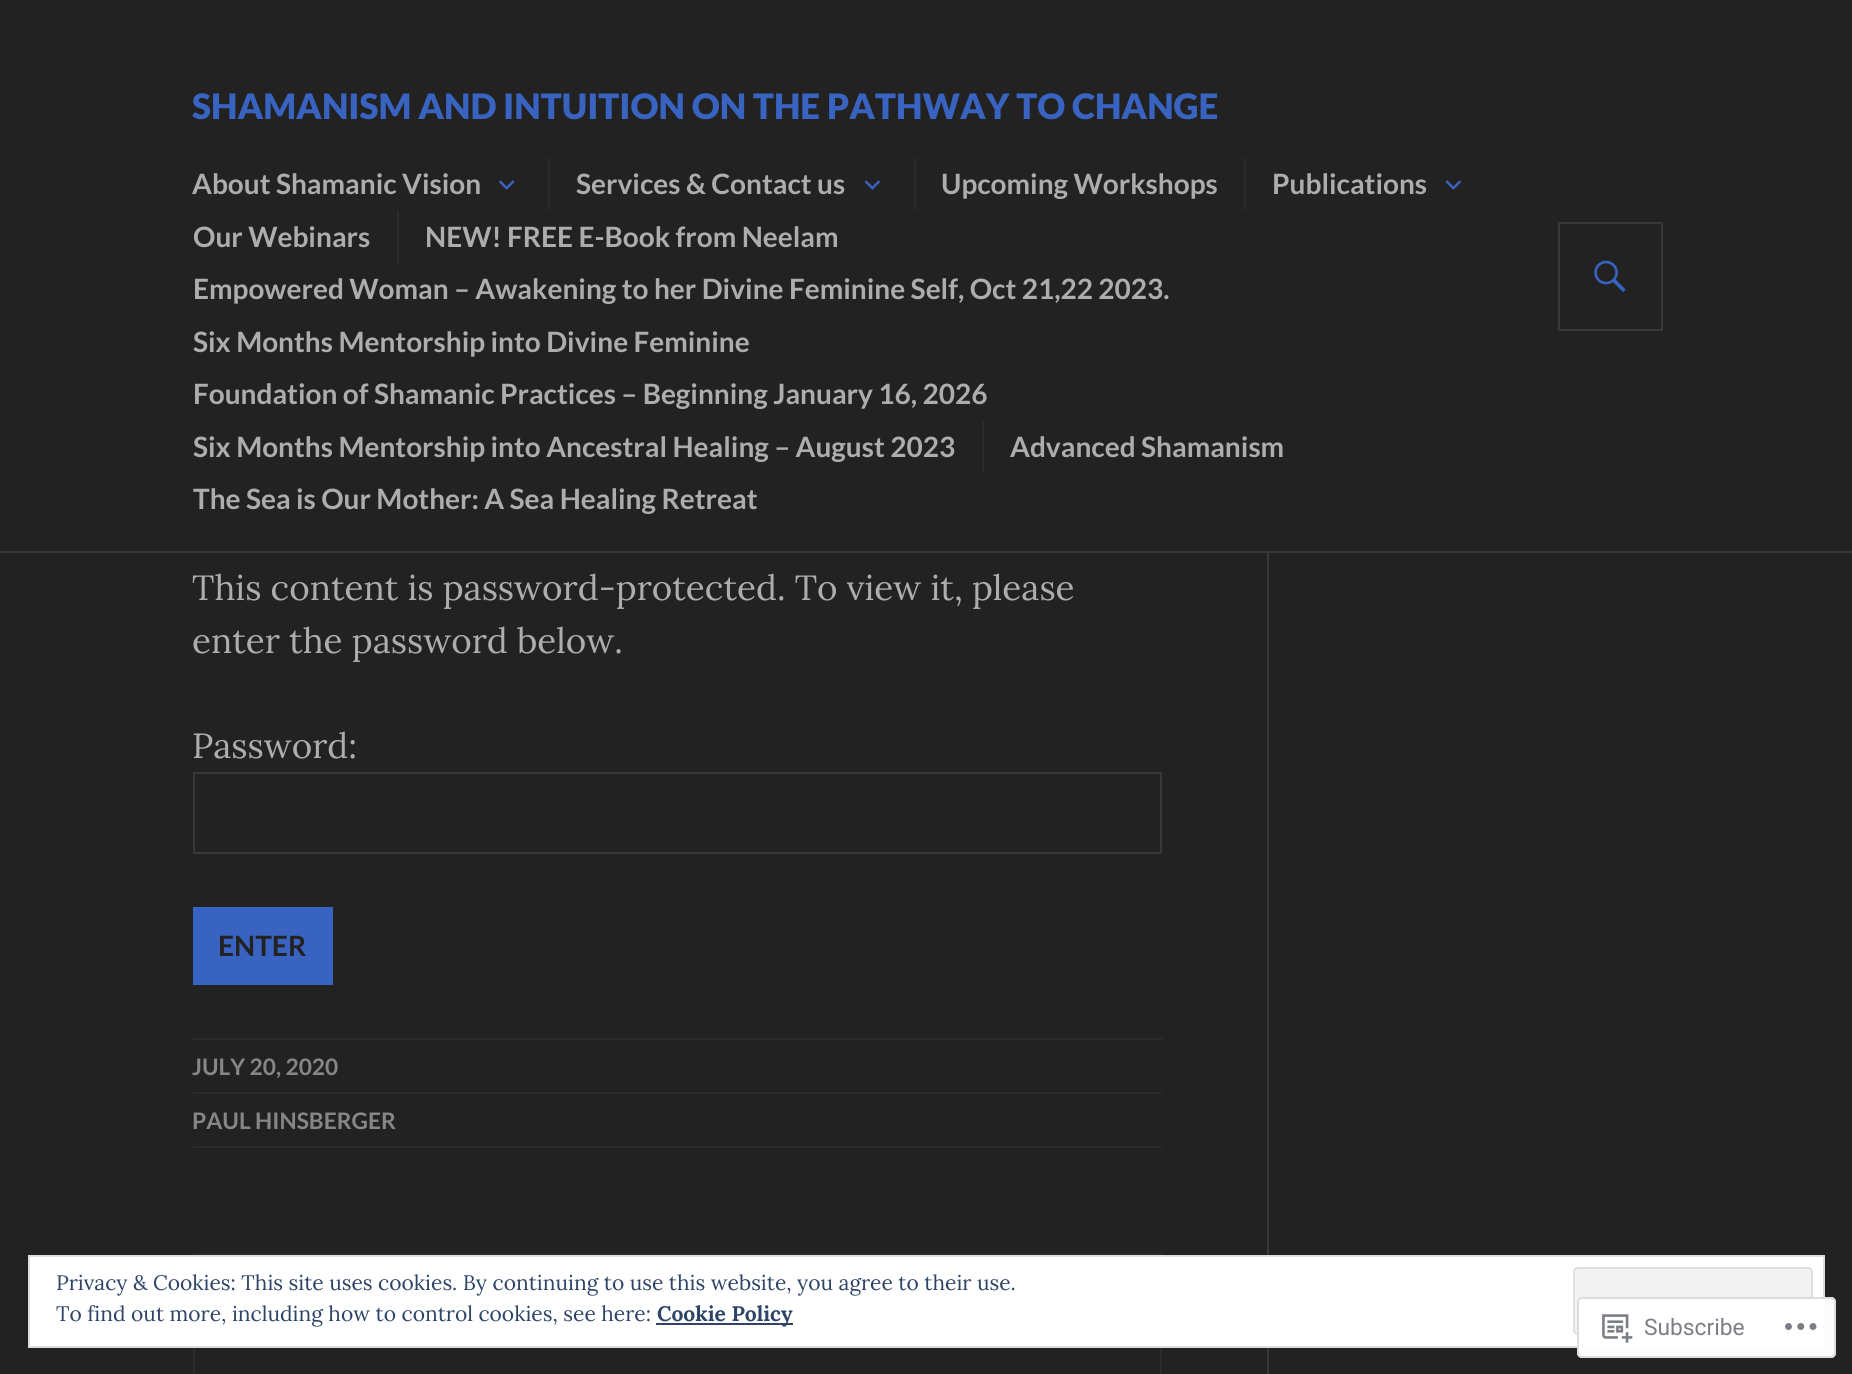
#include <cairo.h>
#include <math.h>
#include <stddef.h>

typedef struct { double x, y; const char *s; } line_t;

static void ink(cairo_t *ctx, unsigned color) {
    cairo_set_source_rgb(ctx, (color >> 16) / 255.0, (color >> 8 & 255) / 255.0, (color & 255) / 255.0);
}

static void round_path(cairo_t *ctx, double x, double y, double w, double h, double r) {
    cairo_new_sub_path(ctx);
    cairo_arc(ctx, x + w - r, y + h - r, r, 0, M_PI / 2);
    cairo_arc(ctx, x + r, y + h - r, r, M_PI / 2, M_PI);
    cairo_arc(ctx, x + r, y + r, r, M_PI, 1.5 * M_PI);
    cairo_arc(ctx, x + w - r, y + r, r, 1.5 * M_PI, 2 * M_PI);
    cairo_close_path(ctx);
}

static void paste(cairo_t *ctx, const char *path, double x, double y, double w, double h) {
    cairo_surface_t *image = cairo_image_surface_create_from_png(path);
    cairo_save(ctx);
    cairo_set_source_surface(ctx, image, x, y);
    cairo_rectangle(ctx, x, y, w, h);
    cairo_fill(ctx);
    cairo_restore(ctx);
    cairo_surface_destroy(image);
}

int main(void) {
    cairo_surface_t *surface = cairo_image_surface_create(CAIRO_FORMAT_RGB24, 1852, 1374);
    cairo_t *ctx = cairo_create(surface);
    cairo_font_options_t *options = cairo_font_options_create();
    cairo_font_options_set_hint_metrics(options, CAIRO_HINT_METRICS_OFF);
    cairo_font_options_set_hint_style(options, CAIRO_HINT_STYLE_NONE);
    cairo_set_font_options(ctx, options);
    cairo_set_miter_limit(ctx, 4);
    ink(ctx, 0x222222);
    cairo_paint(ctx);
    ink(ctx, 0x383838);
    cairo_rectangle(ctx, 0, 551, 1852, 2);
    cairo_fill(ctx);
    cairo_select_font_face(ctx, "Lato Black", CAIRO_FONT_SLANT_NORMAL, CAIRO_FONT_WEIGHT_NORMAL);
    cairo_set_font_size(ctx, 35);
    ink(ctx, 0x3863C1);
    cairo_move_to(ctx, 192, 119);
    cairo_show_text(ctx, "SHAMANISM AND INTUITION ON THE PATHWAY TO CHANGE");
    cairo_select_font_face(ctx, "Lato", CAIRO_FONT_SLANT_NORMAL, CAIRO_FONT_WEIGHT_BOLD);
    cairo_set_font_size(ctx, 28);
    ink(ctx, 0xADADAD);
    cairo_move_to(ctx, 192, 194);
    cairo_show_text(ctx, "About Shamanic Vision");
    paste(ctx, "media/1.png", 499, 180, 16, 10);
    ink(ctx, 0x2B2B2B);
    cairo_rectangle(ctx, 548, 158, 2, 52);
    cairo_fill(ctx);
    ink(ctx, 0xADADAD);
    cairo_move_to(ctx, 576, 194);
    cairo_show_text(ctx, "Services & Contact us");
    paste(ctx, "media/2.png", 864, 180, 17, 10);
    ink(ctx, 0x2B2B2B);
    cairo_rectangle(ctx, 914, 158, 2, 52);
    cairo_fill(ctx);
    ink(ctx, 0xADADAD);
    cairo_move_to(ctx, 941, 194);
    cairo_show_text(ctx, "Upcoming Workshops");
    ink(ctx, 0x2B2B2B);
    cairo_rectangle(ctx, 1244, 158, 2, 52);
    cairo_fill(ctx);
    ink(ctx, 0xADADAD);
    cairo_move_to(ctx, 1272, 194);
    cairo_show_text(ctx, "Publications");
    paste(ctx, "media/2.png", 1445, 180, 17, 10);
    cairo_move_to(ctx, 193, 247);
    cairo_show_text(ctx, "Our Webinars");
    ink(ctx, 0x2B2B2B);
    cairo_rectangle(ctx, 397, 210, 2, 53);
    cairo_fill(ctx);
    ink(ctx, 0xADADAD);
    {
        static const line_t items[] = {
            {425, 247, "NEW! FREE E-Book from Neelam"},
            {193, 299, "Empowered Woman – Awakening to her Divine Feminine Self, Oct 21,22 2023."},
            {193, 352, "Six Months Mentorship into Divine Feminine"},
            {193, 404, "Foundation of Shamanic Practices – Beginning January 16, 2026"},
            {193, 457, "Six Months Mentorship into Ancestral Healing – August 2023"},
        };
        for (size_t i = 0; i < sizeof items / sizeof *items; i++) {
            cairo_move_to(ctx, items[i].x, items[i].y);
            cairo_show_text(ctx, items[i].s);
        }
    }
    ink(ctx, 0x2B2B2B);
    cairo_rectangle(ctx, 982, 420, 2, 53);
    cairo_fill(ctx);
    ink(ctx, 0xADADAD);
    cairo_move_to(ctx, 1010, 457);
    cairo_show_text(ctx, "Advanced Shamanism");
    cairo_move_to(ctx, 193, 509);
    cairo_show_text(ctx, "The Sea is Our Mother: A Sea Healing Retreat");
    cairo_rectangle(ctx, 1559, 223, 103, 107);
    ink(ctx, 0x383838);
    cairo_stroke(ctx);
    paste(ctx, "media/3.png", 1594, 260, 32, 33);
    cairo_rectangle(ctx, 1267, 553, 2, 821);
    cairo_fill(ctx);
    cairo_select_font_face(ctx, "Lora", CAIRO_FONT_SLANT_NORMAL, CAIRO_FONT_WEIGHT_NORMAL);
    cairo_set_font_size(ctx, 35);
    ink(ctx, 0xADADAD);
    {
        static const line_t items[] = {
            {192, 600, "This content is password-protected. To view it, please"},
            {192, 653, "enter the password below."},
            {192, 758, "Password:"},
        };
        for (size_t i = 0; i < sizeof items / sizeof *items; i++) {
            cairo_move_to(ctx, items[i].x, items[i].y);
            cairo_show_text(ctx, items[i].s);
        }
    }
    cairo_rectangle(ctx, 194, 773, 967, 80);
    ink(ctx, 0x383838);
    cairo_stroke(ctx);
    ink(ctx, 0x3863C1);
    cairo_rectangle(ctx, 193, 907, 140, 78);
    cairo_fill(ctx);
    cairo_select_font_face(ctx, "Lato", CAIRO_FONT_SLANT_NORMAL, CAIRO_FONT_WEIGHT_BOLD);
    cairo_set_font_size(ctx, 28);
    ink(ctx, 0x222222);
    cairo_move_to(ctx, 218, 956);
    cairo_show_text(ctx, "ENTER");
    ink(ctx, 0x2B2B2B);
    cairo_rectangle(ctx, 193, 1038, 969, 2);
    cairo_fill(ctx);
    cairo_set_font_size(ctx, 22.75);
    ink(ctx, 0x878787);
    cairo_move_to(ctx, 192, 1075);
    cairo_show_text(ctx, "JULY 20, 2020");
    ink(ctx, 0x2B2B2B);
    cairo_rectangle(ctx, 193, 1092, 969, 2);
    cairo_fill(ctx);
    cairo_rectangle(ctx, 193, 1146, 969, 2);
    cairo_fill(ctx);
    ink(ctx, 0x878787);
    cairo_move_to(ctx, 192, 1129);
    cairo_show_text(ctx, "PAUL HINSBERGER");
    cairo_rectangle(ctx, 194, 1254, 967, 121);
    ink(ctx, 0x2B2B2B);
    cairo_stroke(ctx);
    ink(ctx, 0xFFFFFF);
    cairo_rectangle(ctx, 29, 1256, 1795, 91);
    cairo_fill_preserve(ctx);
    ink(ctx, 0xDEDEDE);
    cairo_stroke(ctx);
    cairo_select_font_face(ctx, "Lora", CAIRO_FONT_SLANT_NORMAL, CAIRO_FONT_WEIGHT_NORMAL);
    cairo_set_font_size(ctx, 21);
    ink(ctx, 0x2E4467);
    cairo_move_to(ctx, 56, 1290);
    cairo_show_text(ctx, "Privacy & Cookies: This site uses cookies. By continuing to use this website, you agree to their use.");
    ink(ctx, 0xF3F3F3);
    round_path(ctx, 1574, 1268, 238, 66, 4);
    cairo_fill_preserve(ctx);
    ink(ctx, 0xDEDEDE);
    cairo_stroke(ctx);
    ink(ctx, 0x2E4467);
    cairo_move_to(ctx, 56, 1321);
    cairo_show_text(ctx, "To find out more, including how to control cookies, see here:");
    cairo_rectangle(ctx, 656, 1323, 137, 2);
    cairo_fill(ctx);
    cairo_select_font_face(ctx, "Lora", CAIRO_FONT_SLANT_NORMAL, CAIRO_FONT_WEIGHT_BOLD);
    cairo_move_to(ctx, 657, 1321);
    cairo_show_text(ctx, "Cookie Policy");
    cairo_set_source_rgba(ctx, 1, 1, 1, 0.98);
    round_path(ctx, 1577, 1297, 259, 61, 5);
    cairo_fill(ctx);
    round_path(ctx, 1578, 1298, 257, 59, 4);
    cairo_set_source_rgba(ctx, 0.863, 0.863, 0.871, 0.98);
    cairo_stroke(ctx);
    paste(ctx, "media/4.png", 1602, 1314, 31, 29);
    cairo_select_font_face(ctx, "Roboto", CAIRO_FONT_SLANT_NORMAL, CAIRO_FONT_WEIGHT_NORMAL);
    cairo_set_font_size(ctx, 22.75);
    ink(ctx, 0x7B7F84);
    cairo_move_to(ctx, 1644, 1335);
    cairo_show_text(ctx, "Subscribe");
    paste(ctx, "media/5.png", 1785, 1323, 32, 7);
    cairo_surface_write_to_png(surface, "image.png");
    cairo_font_options_destroy(options);
    cairo_destroy(ctx);
    cairo_surface_destroy(surface);
    return 0;
}
